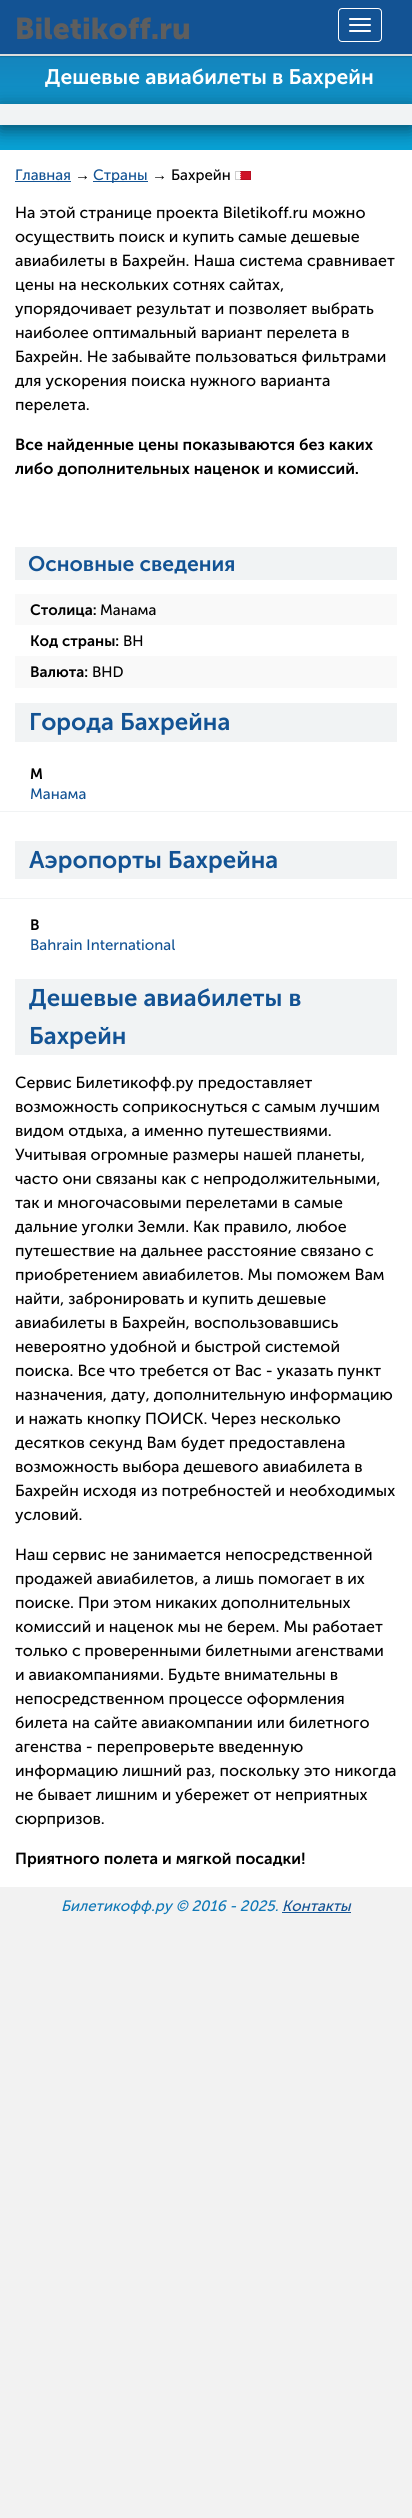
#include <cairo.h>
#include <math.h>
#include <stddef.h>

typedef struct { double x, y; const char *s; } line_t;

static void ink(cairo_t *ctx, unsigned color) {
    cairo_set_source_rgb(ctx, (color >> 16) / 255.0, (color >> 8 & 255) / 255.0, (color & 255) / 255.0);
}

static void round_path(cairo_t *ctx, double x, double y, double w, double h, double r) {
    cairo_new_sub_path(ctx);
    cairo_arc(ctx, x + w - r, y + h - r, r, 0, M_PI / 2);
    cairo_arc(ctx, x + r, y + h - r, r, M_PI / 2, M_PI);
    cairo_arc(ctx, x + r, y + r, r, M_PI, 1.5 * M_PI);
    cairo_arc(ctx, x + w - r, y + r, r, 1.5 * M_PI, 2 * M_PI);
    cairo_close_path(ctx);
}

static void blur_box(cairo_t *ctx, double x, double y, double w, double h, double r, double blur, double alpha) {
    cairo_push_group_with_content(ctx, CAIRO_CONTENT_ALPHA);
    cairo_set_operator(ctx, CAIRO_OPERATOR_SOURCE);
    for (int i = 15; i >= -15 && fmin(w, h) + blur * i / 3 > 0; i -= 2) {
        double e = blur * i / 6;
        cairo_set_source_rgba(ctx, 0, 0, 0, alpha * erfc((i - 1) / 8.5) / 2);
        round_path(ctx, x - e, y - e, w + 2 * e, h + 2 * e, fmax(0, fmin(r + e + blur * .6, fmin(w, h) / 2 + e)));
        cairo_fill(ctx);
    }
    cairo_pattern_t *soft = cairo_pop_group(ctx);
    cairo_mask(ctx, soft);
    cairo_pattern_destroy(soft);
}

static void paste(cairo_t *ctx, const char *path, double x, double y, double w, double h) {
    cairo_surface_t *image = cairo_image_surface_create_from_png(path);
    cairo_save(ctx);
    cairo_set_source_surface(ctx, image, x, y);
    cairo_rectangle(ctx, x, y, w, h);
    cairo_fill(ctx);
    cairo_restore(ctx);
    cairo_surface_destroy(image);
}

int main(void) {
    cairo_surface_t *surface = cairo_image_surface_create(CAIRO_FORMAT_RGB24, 412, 2518);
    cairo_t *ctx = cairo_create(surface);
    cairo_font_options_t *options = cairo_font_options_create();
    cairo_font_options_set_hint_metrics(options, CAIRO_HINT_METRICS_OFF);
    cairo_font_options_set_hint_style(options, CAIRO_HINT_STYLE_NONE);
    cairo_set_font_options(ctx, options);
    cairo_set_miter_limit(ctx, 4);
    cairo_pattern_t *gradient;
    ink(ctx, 0xF2F2F2);
    cairo_paint(ctx);
    gradient = cairo_pattern_create_linear(206, 150, 206, 0);
    cairo_pattern_add_color_stop_rgba(gradient, 0, 0.027, 0.631, 0.831, 1);
    cairo_pattern_add_color_stop_rgba(gradient, 1, 0.114, 0.451, 0.686, 1);
    cairo_set_source(ctx, gradient);
    cairo_pattern_destroy(gradient);
    cairo_rectangle(ctx, 0, 56, 412, 94);
    cairo_fill(ctx);
    ink(ctx, 0x000000);
    blur_box(ctx, 0, 0, 412, 56, 0, 1, 0.45);
    ink(ctx, 0xDDDDDD);
    cairo_rectangle(ctx, 0, 54, 412, 2);
    cairo_fill(ctx);
    ink(ctx, 0x135394);
    cairo_rectangle(ctx, 0, 0, 412, 54);
    cairo_fill(ctx);
    cairo_select_font_face(ctx, "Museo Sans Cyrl", CAIRO_FONT_SLANT_NORMAL, CAIRO_FONT_WEIGHT_BOLD);
    cairo_set_font_size(ctx, 30);
    ink(ctx, 0x5E5E5E);
    cairo_move_to(ctx, 15, 39);
    cairo_show_text(ctx, "Вiletikoff.ru");
    round_path(ctx, 338.5, 8.5, 43, 33, 3.5);
    ink(ctx, 0xFFFFFF);
    cairo_set_line_width(ctx, 1);
    cairo_stroke(ctx);
    round_path(ctx, 349, 18, 22, 2, 1);
    cairo_fill(ctx);
    round_path(ctx, 349, 24, 22, 2, 1);
    cairo_fill(ctx);
    round_path(ctx, 349, 30, 22, 2, 1);
    cairo_fill(ctx);
    ink(ctx, 0x000000);
    blur_box(ctx, 0, 108, 412, 21, 0, 9, 0.5);
    cairo_select_font_face(ctx, "Museo Sans Cyrl SemiBold", CAIRO_FONT_SLANT_NORMAL, CAIRO_FONT_WEIGHT_NORMAL);
    cairo_set_font_size(ctx, 21);
    ink(ctx, 0xFFFFFF);
    cairo_move_to(ctx, 45, 84);
    cairo_show_text(ctx, "Дешевые авиабилеты в Бахрейн");
    ink(ctx, 0xF1F3F4);
    cairo_rectangle(ctx, 0, 104, 412, 21);
    cairo_fill(ctx);
    ink(ctx, 0xFFFFFF);
    cairo_rectangle(ctx, 0, 150, 412, 1737);
    cairo_fill(ctx);
    cairo_select_font_face(ctx, "Museo Sans Cyrl", CAIRO_FONT_SLANT_NORMAL, CAIRO_FONT_WEIGHT_NORMAL);
    cairo_set_font_size(ctx, 15);
    ink(ctx, 0x135394);
    cairo_move_to(ctx, 15, 180);
    cairo_show_text(ctx, "Главная");
    cairo_rectangle(ctx, 15, 181, 56, 1);
    cairo_fill(ctx);
    cairo_select_font_face(ctx, "Liberation Sans", CAIRO_FONT_SLANT_NORMAL, CAIRO_FONT_WEIGHT_NORMAL);
    ink(ctx, 0x000000);
    cairo_move_to(ctx, 75, 180);
    cairo_show_text(ctx, "→");
    ink(ctx, 0x135394);
    cairo_rectangle(ctx, 93, 181, 55, 1);
    cairo_fill(ctx);
    cairo_select_font_face(ctx, "Museo Sans Cyrl", CAIRO_FONT_SLANT_NORMAL, CAIRO_FONT_WEIGHT_NORMAL);
    cairo_move_to(ctx, 93, 180);
    cairo_show_text(ctx, "Страны");
    cairo_select_font_face(ctx, "Liberation Sans", CAIRO_FONT_SLANT_NORMAL, CAIRO_FONT_WEIGHT_NORMAL);
    ink(ctx, 0x000000);
    cairo_move_to(ctx, 152, 180);
    cairo_show_text(ctx, "→");
    cairo_select_font_face(ctx, "Museo Sans Cyrl", CAIRO_FONT_SLANT_NORMAL, CAIRO_FONT_WEIGHT_NORMAL);
    cairo_move_to(ctx, 171, 180);
    cairo_show_text(ctx, "Бахрейн");
    paste(ctx, "media/1.png", 235, 171, 16, 9);
    cairo_set_font_size(ctx, 16);
    {
        static const line_t items[] = {
            {15, 218, "На этой странице проекта Biletikoff.ru можно"},
            {15, 242, "осуществить поиск и купить самые дешевые"},
            {15, 266, "авиабилеты в Бахрейн. Наша система сравнивает"},
            {15, 290, "цены на нескольких сотнях сайтах,"},
            {15, 314, "упорядочивает результат и позволяет выбрать"},
            {15, 338, "наиболее оптимальный вариант перелета в"},
            {15, 362, "Бахрейн. Не забывайте пользоваться фильтрами"},
            {15, 386, "для ускорения поиска нужного варианта"},
            {15, 410, "перелета."},
        };
        for (size_t i = 0; i < sizeof items / sizeof *items; i++) {
            cairo_move_to(ctx, items[i].x, items[i].y);
            cairo_show_text(ctx, items[i].s);
        }
    }
    cairo_select_font_face(ctx, "Museo Sans Cyrl SemiBold", CAIRO_FONT_SLANT_NORMAL, CAIRO_FONT_WEIGHT_NORMAL);
    cairo_move_to(ctx, 15, 450);
    cairo_show_text(ctx, "Все найденные цены показываются без каких");
    cairo_move_to(ctx, 15, 474);
    cairo_show_text(ctx, "либо дополнительных наценок и комиссий.");
    ink(ctx, 0xF1F3F4);
    cairo_rectangle(ctx, 15, 547, 382, 33);
    cairo_fill(ctx);
    cairo_set_font_size(ctx, 21);
    ink(ctx, 0x135394);
    cairo_move_to(ctx, 28, 571);
    cairo_show_text(ctx, "Основные сведения");
    ink(ctx, 0xF9F9F9);
    cairo_rectangle(ctx, 15, 594, 382, 31);
    cairo_fill(ctx);
    cairo_set_font_size(ctx, 15);
    ink(ctx, 0x000000);
    cairo_move_to(ctx, 30, 615);
    cairo_show_text(ctx, "Столица:");
    cairo_select_font_face(ctx, "Museo Sans Cyrl", CAIRO_FONT_SLANT_NORMAL, CAIRO_FONT_WEIGHT_NORMAL);
    cairo_move_to(ctx, 100, 615);
    cairo_show_text(ctx, "Манама");
    cairo_select_font_face(ctx, "Museo Sans Cyrl SemiBold", CAIRO_FONT_SLANT_NORMAL, CAIRO_FONT_WEIGHT_NORMAL);
    cairo_move_to(ctx, 30, 646);
    cairo_show_text(ctx, "Код страны:");
    cairo_select_font_face(ctx, "Museo Sans Cyrl", CAIRO_FONT_SLANT_NORMAL, CAIRO_FONT_WEIGHT_NORMAL);
    cairo_move_to(ctx, 123, 646);
    cairo_show_text(ctx, "BH");
    ink(ctx, 0xF9F9F9);
    cairo_rectangle(ctx, 15, 656, 382, 32);
    cairo_fill(ctx);
    cairo_select_font_face(ctx, "Museo Sans Cyrl SemiBold", CAIRO_FONT_SLANT_NORMAL, CAIRO_FONT_WEIGHT_NORMAL);
    ink(ctx, 0x000000);
    cairo_move_to(ctx, 30, 677);
    cairo_show_text(ctx, "Валюта:");
    cairo_select_font_face(ctx, "Museo Sans Cyrl", CAIRO_FONT_SLANT_NORMAL, CAIRO_FONT_WEIGHT_NORMAL);
    cairo_move_to(ctx, 92, 677);
    cairo_show_text(ctx, "BHD");
    ink(ctx, 0xF1F3F4);
    cairo_rectangle(ctx, 15, 703, 382, 39);
    cairo_fill(ctx);
    cairo_select_font_face(ctx, "Museo Sans Cyrl SemiBold", CAIRO_FONT_SLANT_NORMAL, CAIRO_FONT_WEIGHT_NORMAL);
    cairo_set_font_size(ctx, 24);
    ink(ctx, 0x135394);
    cairo_move_to(ctx, 29, 730);
    cairo_show_text(ctx, "Города Бахрейна");
    ink(ctx, 0xF1F3F4);
    cairo_rectangle(ctx, 0, 811, 412, 1);
    cairo_fill(ctx);
    cairo_set_font_size(ctx, 15);
    ink(ctx, 0x000000);
    cairo_move_to(ctx, 30, 779);
    cairo_show_text(ctx, "М");
    cairo_select_font_face(ctx, "Museo Sans Cyrl", CAIRO_FONT_SLANT_NORMAL, CAIRO_FONT_WEIGHT_NORMAL);
    ink(ctx, 0x135394);
    cairo_move_to(ctx, 30, 799);
    cairo_show_text(ctx, "Манама");
    ink(ctx, 0xF1F3F4);
    cairo_rectangle(ctx, 15, 841, 382, 38);
    cairo_fill(ctx);
    cairo_select_font_face(ctx, "Museo Sans Cyrl SemiBold", CAIRO_FONT_SLANT_NORMAL, CAIRO_FONT_WEIGHT_NORMAL);
    cairo_set_font_size(ctx, 24);
    ink(ctx, 0x135394);
    cairo_move_to(ctx, 29, 868);
    cairo_show_text(ctx, "Аэропорты Бахрейна");
    ink(ctx, 0xF1F3F4);
    cairo_rectangle(ctx, 0, 898, 412, 1);
    cairo_fill(ctx);
    cairo_set_font_size(ctx, 15);
    ink(ctx, 0x000000);
    cairo_move_to(ctx, 30, 930);
    cairo_show_text(ctx, "B");
    cairo_select_font_face(ctx, "Museo Sans Cyrl", CAIRO_FONT_SLANT_NORMAL, CAIRO_FONT_WEIGHT_NORMAL);
    ink(ctx, 0x135394);
    cairo_move_to(ctx, 30, 950);
    cairo_show_text(ctx, "Bahrain International");
    ink(ctx, 0xF1F3F4);
    cairo_rectangle(ctx, 15, 979, 382, 76);
    cairo_fill(ctx);
    cairo_select_font_face(ctx, "Museo Sans Cyrl SemiBold", CAIRO_FONT_SLANT_NORMAL, CAIRO_FONT_WEIGHT_NORMAL);
    cairo_set_font_size(ctx, 24);
    ink(ctx, 0x135394);
    cairo_move_to(ctx, 29, 1006);
    cairo_show_text(ctx, "Дешевые авиабилеты в");
    cairo_move_to(ctx, 29, 1044);
    cairo_show_text(ctx, "Бахрейн");
    cairo_select_font_face(ctx, "Museo Sans Cyrl", CAIRO_FONT_SLANT_NORMAL, CAIRO_FONT_WEIGHT_NORMAL);
    cairo_set_font_size(ctx, 16);
    ink(ctx, 0x000000);
    {
        static const line_t items[] = {
            {15, 1088, "Сервис Билетикофф.ру предоставляет"},
            {15, 1112, "возможность соприкоснуться с самым лучшим"},
            {15, 1136, "видом отдыха, а именно путешествиями."},
            {15, 1160, "Учитывая огромные размеры нашей планеты,"},
            {15, 1184, "часто они связаны как с непродолжительными,"},
            {15, 1208, "так и многочасовыми перелетами в самые"},
            {15, 1232, "дальние уголки Земли. Как правило, любое"},
            {15, 1256, "путешествие на дальнее расстояние связано с"},
            {15, 1280, "приобретением авиабилетов. Мы поможем Вам"},
            {15, 1304, "найти, забронировать и купить дешевые"},
            {15, 1328, "авиабилеты в Бахрейн, воспользовавшись"},
            {15, 1352, "невероятно удобной и быстрой системой"},
            {15, 1376, "поиска. Все что требется от Вас - указать пункт"},
            {15, 1400, "назначения, дату, дополнительную информацию"},
            {15, 1424, "и нажать кнопку ПОИСК. Через несколько"},
            {15, 1448, "десятков секунд Вам будет предоставлена"},
            {15, 1472, "возможность выбора дешевого авиабилета в"},
            {15, 1496, "Бахрейн исходя из потребностей и необходимых"},
            {15, 1520, "условий."},
            {15, 1560, "Наш сервис не занимается непосредственной"},
            {15, 1584, "продажей авиабилетов, а лишь помогает в их"},
            {15, 1608, "поиске. При этом никаких дополнительных"},
            {15, 1632, "комиссий и наценок мы не берем. Мы работает"},
            {15, 1656, "только с проверенными билетными агенствами"},
            {15, 1680, "и авиакомпаниями. Будьте внимательны в"},
            {15, 1704, "непосредственном процессе оформления"},
            {15, 1728, "билета на сайте авиакомпании или билетного"},
            {15, 1752, "агенства - перепроверьте введенную"},
            {15, 1776, "информацию лишний раз, поскольку это никогда"},
            {15, 1800, "не бывает лишним и убережет от неприятных"},
            {15, 1824, "сюрпризов."},
        };
        for (size_t i = 0; i < sizeof items / sizeof *items; i++) {
            cairo_move_to(ctx, items[i].x, items[i].y);
            cairo_show_text(ctx, items[i].s);
        }
    }
    cairo_select_font_face(ctx, "Museo Sans Cyrl SemiBold", CAIRO_FONT_SLANT_NORMAL, CAIRO_FONT_WEIGHT_NORMAL);
    cairo_move_to(ctx, 15, 1864);
    cairo_show_text(ctx, "Приятного полета и мягкой посадки!");
    cairo_select_font_face(ctx, "Museo Sans Cyrl", CAIRO_FONT_SLANT_ITALIC, CAIRO_FONT_WEIGHT_NORMAL);
    cairo_set_font_size(ctx, 15);
    ink(ctx, 0x0F78B7);
    cairo_move_to(ctx, 61, 1911);
    cairo_show_text(ctx, "Билетикофф.ру © 2016 - 2025.");
    ink(ctx, 0x135394);
    cairo_move_to(ctx, 282, 1911);
    cairo_show_text(ctx, "Контакты");
    cairo_rectangle(ctx, 282, 1912, 69, 1);
    cairo_fill(ctx);
    cairo_surface_write_to_png(surface, "image.png");
    cairo_font_options_destroy(options);
    cairo_destroy(ctx);
    cairo_surface_destroy(surface);
    return 0;
}
